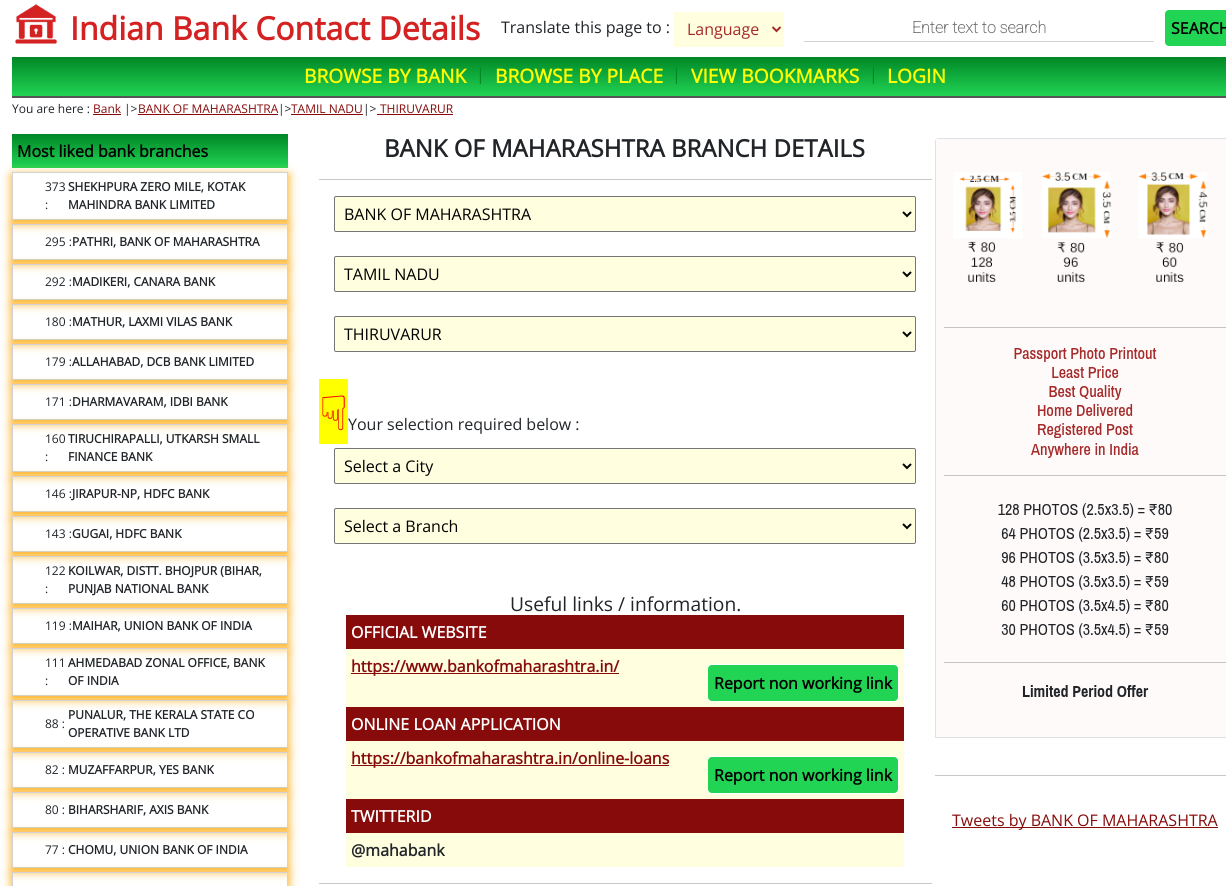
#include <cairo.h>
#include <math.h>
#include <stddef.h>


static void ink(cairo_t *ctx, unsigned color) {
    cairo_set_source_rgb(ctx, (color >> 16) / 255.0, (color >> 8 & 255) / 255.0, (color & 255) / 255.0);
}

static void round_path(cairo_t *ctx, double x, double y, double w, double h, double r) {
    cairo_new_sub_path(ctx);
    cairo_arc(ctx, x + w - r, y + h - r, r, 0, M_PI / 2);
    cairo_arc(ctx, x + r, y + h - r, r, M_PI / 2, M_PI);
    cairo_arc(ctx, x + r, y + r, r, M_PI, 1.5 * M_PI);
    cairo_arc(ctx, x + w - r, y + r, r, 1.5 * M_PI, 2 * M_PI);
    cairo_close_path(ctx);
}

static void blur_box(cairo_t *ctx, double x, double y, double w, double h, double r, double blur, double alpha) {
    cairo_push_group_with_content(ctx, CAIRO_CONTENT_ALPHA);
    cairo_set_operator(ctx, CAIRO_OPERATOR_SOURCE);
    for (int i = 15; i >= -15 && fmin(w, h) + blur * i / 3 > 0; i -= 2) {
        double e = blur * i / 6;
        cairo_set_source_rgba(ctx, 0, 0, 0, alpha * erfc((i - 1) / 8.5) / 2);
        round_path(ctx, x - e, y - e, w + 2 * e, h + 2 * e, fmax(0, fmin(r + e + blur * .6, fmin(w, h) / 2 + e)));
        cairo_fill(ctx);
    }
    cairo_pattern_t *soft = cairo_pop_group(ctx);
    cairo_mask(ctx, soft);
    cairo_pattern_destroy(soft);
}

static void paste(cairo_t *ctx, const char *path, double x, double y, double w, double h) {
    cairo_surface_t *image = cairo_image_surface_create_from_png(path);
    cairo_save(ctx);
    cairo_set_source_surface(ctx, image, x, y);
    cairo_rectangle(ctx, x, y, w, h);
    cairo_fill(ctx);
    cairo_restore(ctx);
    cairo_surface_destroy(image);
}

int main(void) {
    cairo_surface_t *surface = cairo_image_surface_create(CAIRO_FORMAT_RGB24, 1226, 886);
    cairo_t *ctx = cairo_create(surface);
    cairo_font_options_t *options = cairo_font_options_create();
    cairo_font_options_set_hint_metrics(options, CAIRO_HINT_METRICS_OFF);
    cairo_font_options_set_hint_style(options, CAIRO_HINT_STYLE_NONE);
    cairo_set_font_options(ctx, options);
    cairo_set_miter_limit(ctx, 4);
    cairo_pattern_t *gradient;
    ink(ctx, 0xFFFFFF);
    cairo_paint(ctx);
    paste(ctx, "media/1.png", 15, 4, 42, 40);
    cairo_select_font_face(ctx, "Open Sans", CAIRO_FONT_SLANT_NORMAL, CAIRO_FONT_WEIGHT_BOLD);
    cairo_set_font_size(ctx, 32);
    ink(ctx, 0xD42222);
    cairo_move_to(ctx, 70, 40);
    cairo_show_text(ctx, "Indian Bank Contact Details");
    cairo_select_font_face(ctx, "Open Sans", CAIRO_FONT_SLANT_NORMAL, CAIRO_FONT_WEIGHT_NORMAL);
    cairo_set_font_size(ctx, 16);
    ink(ctx, 0x212529);
    cairo_move_to(ctx, 501, 33);
    cairo_show_text(ctx, "Translate this page to :");
    ink(ctx, 0xFFFFE0);
    cairo_rectangle(ctx, 674, 12, 110, 35);
    cairo_fill(ctx);
    cairo_new_path(ctx);
    cairo_move_to(ctx, 772.5, 27);
    cairo_line_to(ctx, 776.5, 31);
    cairo_line_to(ctx, 780.5, 27);
    ink(ctx, 0xA52A2A);
    cairo_stroke(ctx);
    cairo_move_to(ctx, 687, 35);
    cairo_show_text(ctx, "Language");
    ink(ctx, 0xD3D3D3);
    cairo_rectangle(ctx, 804, 41, 350, 1);
    cairo_fill(ctx);
    cairo_select_font_face(ctx, "Roboto", CAIRO_FONT_SLANT_NORMAL, CAIRO_FONT_WEIGHT_BOLD);
    ink(ctx, 0x757575);
    cairo_move_to(ctx, 912, 33);
    cairo_show_text(ctx, "Enter text to search");
    ink(ctx, 0x22D454);
    round_path(ctx, 1164.5, 9.5, 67, 37, 4.5);
    cairo_fill_preserve(ctx);
    ink(ctx, 0xFFFFFF);
    cairo_set_line_width(ctx, 1);
    cairo_stroke(ctx);
    cairo_select_font_face(ctx, "Open Sans", CAIRO_FONT_SLANT_NORMAL, CAIRO_FONT_WEIGHT_BOLD);
    ink(ctx, 0x000000);
    cairo_move_to(ctx, 1171, 34);
    cairo_show_text(ctx, "SEARCH");
    gradient = cairo_pattern_create_linear(625, 57, 625, 96);
    cairo_pattern_add_color_stop_rgba(gradient, 0, 0, 0.529, 0.149, 1);
    cairo_pattern_add_color_stop_rgba(gradient, 1, 0.133, 0.831, 0.329, 1);
    cairo_set_source(ctx, gradient);
    cairo_pattern_destroy(gradient);
    cairo_rectangle(ctx, 12, 57, 1214, 39);
    cairo_fill(ctx);
    ink(ctx, 0x555555);
    cairo_rectangle(ctx, 12, 96, 1214, 2);
    cairo_fill(ctx);
    cairo_set_font_size(ctx, 19.25);
    ink(ctx, 0xFFFF00);
    cairo_move_to(ctx, 304, 83);
    cairo_show_text(ctx, "BROWSE BY BANK");
    cairo_select_font_face(ctx, "Open Sans", CAIRO_FONT_SLANT_NORMAL, CAIRO_FONT_WEIGHT_NORMAL);
    cairo_set_font_size(ctx, 16);
    ink(ctx, 0x008726);
    cairo_move_to(ctx, 476, 80);
    cairo_show_text(ctx, "|");
    cairo_select_font_face(ctx, "Open Sans", CAIRO_FONT_SLANT_NORMAL, CAIRO_FONT_WEIGHT_BOLD);
    cairo_set_font_size(ctx, 19.25);
    ink(ctx, 0xFFFF00);
    cairo_move_to(ctx, 495, 83);
    cairo_show_text(ctx, "BROWSE BY PLACE");
    cairo_select_font_face(ctx, "Open Sans", CAIRO_FONT_SLANT_NORMAL, CAIRO_FONT_WEIGHT_NORMAL);
    cairo_set_font_size(ctx, 16);
    ink(ctx, 0x008726);
    cairo_move_to(ctx, 672, 80);
    cairo_show_text(ctx, "|");
    cairo_select_font_face(ctx, "Open Sans", CAIRO_FONT_SLANT_NORMAL, CAIRO_FONT_WEIGHT_BOLD);
    cairo_set_font_size(ctx, 19.25);
    ink(ctx, 0xFFFF00);
    cairo_move_to(ctx, 691, 83);
    cairo_show_text(ctx, "VIEW BOOKMARKS");
    cairo_select_font_face(ctx, "Open Sans", CAIRO_FONT_SLANT_NORMAL, CAIRO_FONT_WEIGHT_NORMAL);
    cairo_set_font_size(ctx, 16);
    ink(ctx, 0x008726);
    cairo_move_to(ctx, 869, 80);
    cairo_show_text(ctx, "|");
    cairo_select_font_face(ctx, "Open Sans", CAIRO_FONT_SLANT_NORMAL, CAIRO_FONT_WEIGHT_BOLD);
    cairo_set_font_size(ctx, 19.25);
    ink(ctx, 0xFFFF00);
    cairo_move_to(ctx, 887, 83);
    cairo_show_text(ctx, "LOGIN");
    cairo_select_font_face(ctx, "Open Sans", CAIRO_FONT_SLANT_NORMAL, CAIRO_FONT_WEIGHT_NORMAL);
    cairo_set_font_size(ctx, 12);
    ink(ctx, 0x212529);
    cairo_move_to(ctx, 12, 113);
    cairo_show_text(ctx, "You are here :");
    ink(ctx, 0x870B0B);
    cairo_move_to(ctx, 93, 113);
    cairo_show_text(ctx, "Bank");
    cairo_rectangle(ctx, 93, 114, 28, 1);
    cairo_fill(ctx);
    ink(ctx, 0x212529);
    cairo_move_to(ctx, 124, 113);
    cairo_show_text(ctx, "|>");
    ink(ctx, 0x870B0B);
    cairo_move_to(ctx, 138, 113);
    cairo_show_text(ctx, "BANK OF MAHARASHTRA");
    cairo_rectangle(ctx, 138, 114, 140, 1);
    cairo_fill(ctx);
    ink(ctx, 0x212529);
    cairo_move_to(ctx, 278, 113);
    cairo_show_text(ctx, "|>");
    ink(ctx, 0x870B0B);
    cairo_move_to(ctx, 291, 113);
    cairo_show_text(ctx, "TAMIL NADU");
    cairo_rectangle(ctx, 291, 114, 72, 1);
    cairo_fill(ctx);
    ink(ctx, 0x212529);
    cairo_move_to(ctx, 363, 113);
    cairo_show_text(ctx, "|>");
    ink(ctx, 0x870B0B);
    cairo_move_to(ctx, 380, 113);
    cairo_show_text(ctx, "THIRUVARUR");
    cairo_rectangle(ctx, 377, 114, 76, 1);
    cairo_fill(ctx);
    gradient = cairo_pattern_create_linear(150, 134, 150, 168);
    cairo_pattern_add_color_stop_rgba(gradient, 0, 0, 0.529, 0.149, 1);
    cairo_pattern_add_color_stop_rgba(gradient, 1, 0.133, 0.831, 0.329, 1);
    cairo_set_source(ctx, gradient);
    cairo_pattern_destroy(gradient);
    cairo_rectangle(ctx, 12, 134, 276, 34);
    cairo_fill(ctx);
    cairo_select_font_face(ctx, "Open Sans", CAIRO_FONT_SLANT_NORMAL, CAIRO_FONT_WEIGHT_BOLD);
    cairo_set_font_size(ctx, 16);
    ink(ctx, 0x000000);
    cairo_move_to(ctx, 17, 157);
    cairo_show_text(ctx, "Most liked bank branches");
    cairo_save(ctx);
    cairo_set_fill_rule(ctx, CAIRO_FILL_RULE_EVEN_ODD);
    cairo_new_path(ctx);
    cairo_move_to(ctx, 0, 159);
    cairo_line_to(ctx, 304, 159);
    cairo_line_to(ctx, 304, 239);
    cairo_line_to(ctx, 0, 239);
    cairo_close_path(ctx);
    cairo_move_to(ctx, 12, 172);
    cairo_line_to(ctx, 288, 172);
    cairo_line_to(ctx, 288, 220);
    cairo_line_to(ctx, 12, 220);
    cairo_close_path(ctx);
    cairo_clip(ctx);
    ink(ctx, 0xFFA500);
    blur_box(ctx, 12, 175, 276, 48, 0, 5, 1);
    cairo_restore(ctx);
    cairo_rectangle(ctx, 12.5, 172.5, 275, 47);
    ink(ctx, 0xD3D3D3);
    cairo_stroke(ctx);
    cairo_select_font_face(ctx, "Open Sans", CAIRO_FONT_SLANT_NORMAL, CAIRO_FONT_WEIGHT_NORMAL);
    cairo_set_font_size(ctx, 12);
    ink(ctx, 0x212529);
    cairo_move_to(ctx, 45, 191);
    cairo_show_text(ctx, "373");
    cairo_move_to(ctx, 45, 209);
    cairo_show_text(ctx, ":");
    cairo_select_font_face(ctx, "Open Sans", CAIRO_FONT_SLANT_NORMAL, CAIRO_FONT_WEIGHT_BOLD);
    cairo_move_to(ctx, 68, 191);
    cairo_show_text(ctx, "SHEKHPURA ZERO MILE, KOTAK");
    cairo_move_to(ctx, 68, 209);
    cairo_show_text(ctx, "MAHINDRA BANK LIMITED");
    cairo_save(ctx);
    cairo_set_fill_rule(ctx, CAIRO_FILL_RULE_EVEN_ODD);
    cairo_new_path(ctx);
    cairo_move_to(ctx, 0, 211);
    cairo_line_to(ctx, 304, 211);
    cairo_line_to(ctx, 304, 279);
    cairo_line_to(ctx, 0, 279);
    cairo_close_path(ctx);
    cairo_move_to(ctx, 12, 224);
    cairo_line_to(ctx, 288, 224);
    cairo_line_to(ctx, 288, 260);
    cairo_line_to(ctx, 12, 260);
    cairo_close_path(ctx);
    cairo_clip(ctx);
    ink(ctx, 0xFFA500);
    blur_box(ctx, 12, 227, 276, 36, 0, 5, 1);
    cairo_restore(ctx);
    cairo_rectangle(ctx, 12.5, 224.5, 275, 35);
    ink(ctx, 0xD3D3D3);
    cairo_stroke(ctx);
    cairo_select_font_face(ctx, "Open Sans", CAIRO_FONT_SLANT_NORMAL, CAIRO_FONT_WEIGHT_NORMAL);
    ink(ctx, 0x212529);
    cairo_move_to(ctx, 45, 246);
    cairo_show_text(ctx, "295 :");
    cairo_select_font_face(ctx, "Open Sans", CAIRO_FONT_SLANT_NORMAL, CAIRO_FONT_WEIGHT_BOLD);
    cairo_move_to(ctx, 72, 246);
    cairo_show_text(ctx, "PATHRI, BANK OF MAHARASHTRA");
    cairo_save(ctx);
    cairo_set_fill_rule(ctx, CAIRO_FILL_RULE_EVEN_ODD);
    cairo_new_path(ctx);
    cairo_move_to(ctx, 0, 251);
    cairo_line_to(ctx, 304, 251);
    cairo_line_to(ctx, 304, 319);
    cairo_line_to(ctx, 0, 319);
    cairo_close_path(ctx);
    cairo_move_to(ctx, 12, 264);
    cairo_line_to(ctx, 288, 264);
    cairo_line_to(ctx, 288, 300);
    cairo_line_to(ctx, 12, 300);
    cairo_close_path(ctx);
    cairo_clip(ctx);
    ink(ctx, 0xFFA500);
    blur_box(ctx, 12, 267, 276, 36, 0, 5, 1);
    cairo_restore(ctx);
    cairo_rectangle(ctx, 12.5, 264.5, 275, 35);
    ink(ctx, 0xD3D3D3);
    cairo_stroke(ctx);
    cairo_select_font_face(ctx, "Open Sans", CAIRO_FONT_SLANT_NORMAL, CAIRO_FONT_WEIGHT_NORMAL);
    ink(ctx, 0x212529);
    cairo_move_to(ctx, 45, 286);
    cairo_show_text(ctx, "292 :");
    cairo_select_font_face(ctx, "Open Sans", CAIRO_FONT_SLANT_NORMAL, CAIRO_FONT_WEIGHT_BOLD);
    cairo_move_to(ctx, 72, 286);
    cairo_show_text(ctx, "MADIKERI, CANARA BANK");
    cairo_save(ctx);
    cairo_set_fill_rule(ctx, CAIRO_FILL_RULE_EVEN_ODD);
    cairo_new_path(ctx);
    cairo_move_to(ctx, 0, 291);
    cairo_line_to(ctx, 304, 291);
    cairo_line_to(ctx, 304, 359);
    cairo_line_to(ctx, 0, 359);
    cairo_close_path(ctx);
    cairo_move_to(ctx, 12, 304);
    cairo_line_to(ctx, 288, 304);
    cairo_line_to(ctx, 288, 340);
    cairo_line_to(ctx, 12, 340);
    cairo_close_path(ctx);
    cairo_clip(ctx);
    ink(ctx, 0xFFA500);
    blur_box(ctx, 12, 307, 276, 36, 0, 5, 1);
    cairo_restore(ctx);
    cairo_rectangle(ctx, 12.5, 304.5, 275, 35);
    ink(ctx, 0xD3D3D3);
    cairo_stroke(ctx);
    cairo_select_font_face(ctx, "Open Sans", CAIRO_FONT_SLANT_NORMAL, CAIRO_FONT_WEIGHT_NORMAL);
    ink(ctx, 0x212529);
    cairo_move_to(ctx, 45, 326);
    cairo_show_text(ctx, "180 :");
    cairo_select_font_face(ctx, "Open Sans", CAIRO_FONT_SLANT_NORMAL, CAIRO_FONT_WEIGHT_BOLD);
    cairo_move_to(ctx, 72, 326);
    cairo_show_text(ctx, "MATHUR, LAXMI VILAS BANK");
    cairo_save(ctx);
    cairo_set_fill_rule(ctx, CAIRO_FILL_RULE_EVEN_ODD);
    cairo_new_path(ctx);
    cairo_move_to(ctx, 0, 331);
    cairo_line_to(ctx, 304, 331);
    cairo_line_to(ctx, 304, 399);
    cairo_line_to(ctx, 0, 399);
    cairo_close_path(ctx);
    cairo_move_to(ctx, 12, 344);
    cairo_line_to(ctx, 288, 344);
    cairo_line_to(ctx, 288, 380);
    cairo_line_to(ctx, 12, 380);
    cairo_close_path(ctx);
    cairo_clip(ctx);
    ink(ctx, 0xFFA500);
    blur_box(ctx, 12, 347, 276, 36, 0, 5, 1);
    cairo_restore(ctx);
    cairo_rectangle(ctx, 12.5, 344.5, 275, 35);
    ink(ctx, 0xD3D3D3);
    cairo_stroke(ctx);
    cairo_select_font_face(ctx, "Open Sans", CAIRO_FONT_SLANT_NORMAL, CAIRO_FONT_WEIGHT_NORMAL);
    ink(ctx, 0x212529);
    cairo_move_to(ctx, 45, 366);
    cairo_show_text(ctx, "179 :");
    cairo_select_font_face(ctx, "Open Sans", CAIRO_FONT_SLANT_NORMAL, CAIRO_FONT_WEIGHT_BOLD);
    cairo_move_to(ctx, 72, 366);
    cairo_show_text(ctx, "ALLAHABAD, DCB BANK LIMITED");
    cairo_save(ctx);
    cairo_set_fill_rule(ctx, CAIRO_FILL_RULE_EVEN_ODD);
    cairo_new_path(ctx);
    cairo_move_to(ctx, 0, 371);
    cairo_line_to(ctx, 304, 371);
    cairo_line_to(ctx, 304, 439);
    cairo_line_to(ctx, 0, 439);
    cairo_close_path(ctx);
    cairo_move_to(ctx, 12, 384);
    cairo_line_to(ctx, 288, 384);
    cairo_line_to(ctx, 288, 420);
    cairo_line_to(ctx, 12, 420);
    cairo_close_path(ctx);
    cairo_clip(ctx);
    ink(ctx, 0xFFA500);
    blur_box(ctx, 12, 387, 276, 36, 0, 5, 1);
    cairo_restore(ctx);
    cairo_rectangle(ctx, 12.5, 384.5, 275, 35);
    ink(ctx, 0xD3D3D3);
    cairo_stroke(ctx);
    cairo_select_font_face(ctx, "Open Sans", CAIRO_FONT_SLANT_NORMAL, CAIRO_FONT_WEIGHT_NORMAL);
    ink(ctx, 0x212529);
    cairo_move_to(ctx, 45, 406);
    cairo_show_text(ctx, "171 :");
    cairo_select_font_face(ctx, "Open Sans", CAIRO_FONT_SLANT_NORMAL, CAIRO_FONT_WEIGHT_BOLD);
    cairo_move_to(ctx, 72, 406);
    cairo_show_text(ctx, "DHARMAVARAM, IDBI BANK");
    cairo_save(ctx);
    cairo_set_fill_rule(ctx, CAIRO_FILL_RULE_EVEN_ODD);
    cairo_new_path(ctx);
    cairo_move_to(ctx, 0, 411);
    cairo_line_to(ctx, 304, 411);
    cairo_line_to(ctx, 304, 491);
    cairo_line_to(ctx, 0, 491);
    cairo_close_path(ctx);
    cairo_move_to(ctx, 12, 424);
    cairo_line_to(ctx, 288, 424);
    cairo_line_to(ctx, 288, 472);
    cairo_line_to(ctx, 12, 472);
    cairo_close_path(ctx);
    cairo_clip(ctx);
    ink(ctx, 0xFFA500);
    blur_box(ctx, 12, 427, 276, 48, 0, 5, 1);
    cairo_restore(ctx);
    cairo_rectangle(ctx, 12.5, 424.5, 275, 47);
    ink(ctx, 0xD3D3D3);
    cairo_stroke(ctx);
    cairo_select_font_face(ctx, "Open Sans", CAIRO_FONT_SLANT_NORMAL, CAIRO_FONT_WEIGHT_NORMAL);
    ink(ctx, 0x212529);
    cairo_move_to(ctx, 45, 443);
    cairo_show_text(ctx, "160");
    cairo_move_to(ctx, 45, 461);
    cairo_show_text(ctx, ":");
    cairo_select_font_face(ctx, "Open Sans", CAIRO_FONT_SLANT_NORMAL, CAIRO_FONT_WEIGHT_BOLD);
    cairo_move_to(ctx, 68, 443);
    cairo_show_text(ctx, "TIRUCHIRAPALLI, UTKARSH SMALL");
    cairo_move_to(ctx, 68, 461);
    cairo_show_text(ctx, "FINANCE BANK");
    cairo_save(ctx);
    cairo_set_fill_rule(ctx, CAIRO_FILL_RULE_EVEN_ODD);
    cairo_new_path(ctx);
    cairo_move_to(ctx, 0, 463);
    cairo_line_to(ctx, 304, 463);
    cairo_line_to(ctx, 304, 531);
    cairo_line_to(ctx, 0, 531);
    cairo_close_path(ctx);
    cairo_move_to(ctx, 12, 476);
    cairo_line_to(ctx, 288, 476);
    cairo_line_to(ctx, 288, 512);
    cairo_line_to(ctx, 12, 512);
    cairo_close_path(ctx);
    cairo_clip(ctx);
    ink(ctx, 0xFFA500);
    blur_box(ctx, 12, 479, 276, 36, 0, 5, 1);
    cairo_restore(ctx);
    cairo_rectangle(ctx, 12.5, 476.5, 275, 35);
    ink(ctx, 0xD3D3D3);
    cairo_stroke(ctx);
    cairo_select_font_face(ctx, "Open Sans", CAIRO_FONT_SLANT_NORMAL, CAIRO_FONT_WEIGHT_NORMAL);
    ink(ctx, 0x212529);
    cairo_move_to(ctx, 45, 498);
    cairo_show_text(ctx, "146 :");
    cairo_select_font_face(ctx, "Open Sans", CAIRO_FONT_SLANT_NORMAL, CAIRO_FONT_WEIGHT_BOLD);
    cairo_move_to(ctx, 72, 498);
    cairo_show_text(ctx, "JIRAPUR-NP, HDFC BANK");
    cairo_save(ctx);
    cairo_set_fill_rule(ctx, CAIRO_FILL_RULE_EVEN_ODD);
    cairo_new_path(ctx);
    cairo_move_to(ctx, 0, 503);
    cairo_line_to(ctx, 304, 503);
    cairo_line_to(ctx, 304, 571);
    cairo_line_to(ctx, 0, 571);
    cairo_close_path(ctx);
    cairo_move_to(ctx, 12, 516);
    cairo_line_to(ctx, 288, 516);
    cairo_line_to(ctx, 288, 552);
    cairo_line_to(ctx, 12, 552);
    cairo_close_path(ctx);
    cairo_clip(ctx);
    ink(ctx, 0xFFA500);
    blur_box(ctx, 12, 519, 276, 36, 0, 5, 1);
    cairo_restore(ctx);
    cairo_rectangle(ctx, 12.5, 516.5, 275, 35);
    ink(ctx, 0xD3D3D3);
    cairo_stroke(ctx);
    cairo_select_font_face(ctx, "Open Sans", CAIRO_FONT_SLANT_NORMAL, CAIRO_FONT_WEIGHT_NORMAL);
    ink(ctx, 0x212529);
    cairo_move_to(ctx, 45, 538);
    cairo_show_text(ctx, "143 :");
    cairo_select_font_face(ctx, "Open Sans", CAIRO_FONT_SLANT_NORMAL, CAIRO_FONT_WEIGHT_BOLD);
    cairo_move_to(ctx, 72, 538);
    cairo_show_text(ctx, "GUGAI, HDFC BANK");
    cairo_save(ctx);
    cairo_set_fill_rule(ctx, CAIRO_FILL_RULE_EVEN_ODD);
    cairo_new_path(ctx);
    cairo_move_to(ctx, 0, 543);
    cairo_line_to(ctx, 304, 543);
    cairo_line_to(ctx, 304, 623);
    cairo_line_to(ctx, 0, 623);
    cairo_close_path(ctx);
    cairo_move_to(ctx, 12, 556);
    cairo_line_to(ctx, 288, 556);
    cairo_line_to(ctx, 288, 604);
    cairo_line_to(ctx, 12, 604);
    cairo_close_path(ctx);
    cairo_clip(ctx);
    ink(ctx, 0xFFA500);
    blur_box(ctx, 12, 559, 276, 48, 0, 5, 1);
    cairo_restore(ctx);
    cairo_rectangle(ctx, 12.5, 556.5, 275, 47);
    ink(ctx, 0xD3D3D3);
    cairo_stroke(ctx);
    cairo_select_font_face(ctx, "Open Sans", CAIRO_FONT_SLANT_NORMAL, CAIRO_FONT_WEIGHT_NORMAL);
    ink(ctx, 0x212529);
    cairo_move_to(ctx, 45, 575);
    cairo_show_text(ctx, "122");
    cairo_move_to(ctx, 45, 593);
    cairo_show_text(ctx, ":");
    cairo_select_font_face(ctx, "Open Sans", CAIRO_FONT_SLANT_NORMAL, CAIRO_FONT_WEIGHT_BOLD);
    cairo_move_to(ctx, 68, 575);
    cairo_show_text(ctx, "KOILWAR, DISTT. BHOJPUR (BIHAR,");
    cairo_move_to(ctx, 68, 593);
    cairo_show_text(ctx, "PUNJAB NATIONAL BANK");
    cairo_save(ctx);
    cairo_set_fill_rule(ctx, CAIRO_FILL_RULE_EVEN_ODD);
    cairo_new_path(ctx);
    cairo_move_to(ctx, 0, 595);
    cairo_line_to(ctx, 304, 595);
    cairo_line_to(ctx, 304, 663);
    cairo_line_to(ctx, 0, 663);
    cairo_close_path(ctx);
    cairo_move_to(ctx, 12, 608);
    cairo_line_to(ctx, 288, 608);
    cairo_line_to(ctx, 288, 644);
    cairo_line_to(ctx, 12, 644);
    cairo_close_path(ctx);
    cairo_clip(ctx);
    ink(ctx, 0xFFA500);
    blur_box(ctx, 12, 611, 276, 36, 0, 5, 1);
    cairo_restore(ctx);
    cairo_rectangle(ctx, 12.5, 608.5, 275, 35);
    ink(ctx, 0xD3D3D3);
    cairo_stroke(ctx);
    cairo_select_font_face(ctx, "Open Sans", CAIRO_FONT_SLANT_NORMAL, CAIRO_FONT_WEIGHT_NORMAL);
    ink(ctx, 0x212529);
    cairo_move_to(ctx, 45, 630);
    cairo_show_text(ctx, "119 :");
    cairo_select_font_face(ctx, "Open Sans", CAIRO_FONT_SLANT_NORMAL, CAIRO_FONT_WEIGHT_BOLD);
    cairo_move_to(ctx, 72, 630);
    cairo_show_text(ctx, "MAIHAR, UNION BANK OF INDIA");
    cairo_save(ctx);
    cairo_set_fill_rule(ctx, CAIRO_FILL_RULE_EVEN_ODD);
    cairo_new_path(ctx);
    cairo_move_to(ctx, 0, 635);
    cairo_line_to(ctx, 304, 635);
    cairo_line_to(ctx, 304, 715);
    cairo_line_to(ctx, 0, 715);
    cairo_close_path(ctx);
    cairo_move_to(ctx, 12, 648);
    cairo_line_to(ctx, 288, 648);
    cairo_line_to(ctx, 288, 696);
    cairo_line_to(ctx, 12, 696);
    cairo_close_path(ctx);
    cairo_clip(ctx);
    ink(ctx, 0xFFA500);
    blur_box(ctx, 12, 651, 276, 48, 0, 5, 1);
    cairo_restore(ctx);
    cairo_rectangle(ctx, 12.5, 648.5, 275, 47);
    ink(ctx, 0xD3D3D3);
    cairo_stroke(ctx);
    cairo_select_font_face(ctx, "Open Sans", CAIRO_FONT_SLANT_NORMAL, CAIRO_FONT_WEIGHT_NORMAL);
    ink(ctx, 0x212529);
    cairo_move_to(ctx, 45, 667);
    cairo_show_text(ctx, "111");
    cairo_move_to(ctx, 45, 685);
    cairo_show_text(ctx, ":");
    cairo_select_font_face(ctx, "Open Sans", CAIRO_FONT_SLANT_NORMAL, CAIRO_FONT_WEIGHT_BOLD);
    cairo_move_to(ctx, 68, 667);
    cairo_show_text(ctx, "AHMEDABAD ZONAL OFFICE, BANK");
    cairo_move_to(ctx, 68, 685);
    cairo_show_text(ctx, "OF INDIA");
    cairo_save(ctx);
    cairo_set_fill_rule(ctx, CAIRO_FILL_RULE_EVEN_ODD);
    cairo_new_path(ctx);
    cairo_move_to(ctx, 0, 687);
    cairo_line_to(ctx, 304, 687);
    cairo_line_to(ctx, 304, 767);
    cairo_line_to(ctx, 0, 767);
    cairo_close_path(ctx);
    cairo_move_to(ctx, 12, 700);
    cairo_line_to(ctx, 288, 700);
    cairo_line_to(ctx, 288, 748);
    cairo_line_to(ctx, 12, 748);
    cairo_close_path(ctx);
    cairo_clip(ctx);
    ink(ctx, 0xFFA500);
    blur_box(ctx, 12, 703, 276, 48, 0, 5, 1);
    cairo_restore(ctx);
    cairo_rectangle(ctx, 12.5, 700.5, 275, 47);
    ink(ctx, 0xD3D3D3);
    cairo_stroke(ctx);
    cairo_select_font_face(ctx, "Open Sans", CAIRO_FONT_SLANT_NORMAL, CAIRO_FONT_WEIGHT_NORMAL);
    ink(ctx, 0x212529);
    cairo_move_to(ctx, 45, 728);
    cairo_show_text(ctx, "88 :");
    cairo_select_font_face(ctx, "Open Sans", CAIRO_FONT_SLANT_NORMAL, CAIRO_FONT_WEIGHT_BOLD);
    cairo_move_to(ctx, 68, 719);
    cairo_show_text(ctx, "PUNALUR, THE KERALA STATE CO");
    cairo_move_to(ctx, 68, 737);
    cairo_show_text(ctx, "OPERATIVE BANK LTD");
    cairo_save(ctx);
    cairo_set_fill_rule(ctx, CAIRO_FILL_RULE_EVEN_ODD);
    cairo_new_path(ctx);
    cairo_move_to(ctx, 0, 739);
    cairo_line_to(ctx, 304, 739);
    cairo_line_to(ctx, 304, 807);
    cairo_line_to(ctx, 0, 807);
    cairo_close_path(ctx);
    cairo_move_to(ctx, 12, 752);
    cairo_line_to(ctx, 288, 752);
    cairo_line_to(ctx, 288, 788);
    cairo_line_to(ctx, 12, 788);
    cairo_close_path(ctx);
    cairo_clip(ctx);
    ink(ctx, 0xFFA500);
    blur_box(ctx, 12, 755, 276, 36, 0, 5, 1);
    cairo_restore(ctx);
    cairo_rectangle(ctx, 12.5, 752.5, 275, 35);
    ink(ctx, 0xD3D3D3);
    cairo_stroke(ctx);
    cairo_select_font_face(ctx, "Open Sans", CAIRO_FONT_SLANT_NORMAL, CAIRO_FONT_WEIGHT_NORMAL);
    ink(ctx, 0x212529);
    cairo_move_to(ctx, 45, 774);
    cairo_show_text(ctx, "82 :");
    cairo_select_font_face(ctx, "Open Sans", CAIRO_FONT_SLANT_NORMAL, CAIRO_FONT_WEIGHT_BOLD);
    cairo_move_to(ctx, 68, 774);
    cairo_show_text(ctx, "MUZAFFARPUR, YES BANK");
    cairo_save(ctx);
    cairo_set_fill_rule(ctx, CAIRO_FILL_RULE_EVEN_ODD);
    cairo_new_path(ctx);
    cairo_move_to(ctx, 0, 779);
    cairo_line_to(ctx, 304, 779);
    cairo_line_to(ctx, 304, 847);
    cairo_line_to(ctx, 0, 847);
    cairo_close_path(ctx);
    cairo_move_to(ctx, 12, 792);
    cairo_line_to(ctx, 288, 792);
    cairo_line_to(ctx, 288, 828);
    cairo_line_to(ctx, 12, 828);
    cairo_close_path(ctx);
    cairo_clip(ctx);
    ink(ctx, 0xFFA500);
    blur_box(ctx, 12, 795, 276, 36, 0, 5, 1);
    cairo_restore(ctx);
    cairo_rectangle(ctx, 12.5, 792.5, 275, 35);
    ink(ctx, 0xD3D3D3);
    cairo_stroke(ctx);
    cairo_select_font_face(ctx, "Open Sans", CAIRO_FONT_SLANT_NORMAL, CAIRO_FONT_WEIGHT_NORMAL);
    ink(ctx, 0x212529);
    cairo_move_to(ctx, 45, 814);
    cairo_show_text(ctx, "80 :");
    cairo_select_font_face(ctx, "Open Sans", CAIRO_FONT_SLANT_NORMAL, CAIRO_FONT_WEIGHT_BOLD);
    cairo_move_to(ctx, 68, 814);
    cairo_show_text(ctx, "BIHARSHARIF, AXIS BANK");
    cairo_save(ctx);
    cairo_set_fill_rule(ctx, CAIRO_FILL_RULE_EVEN_ODD);
    cairo_new_path(ctx);
    cairo_move_to(ctx, 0, 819);
    cairo_line_to(ctx, 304, 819);
    cairo_line_to(ctx, 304, 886);
    cairo_line_to(ctx, 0, 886);
    cairo_close_path(ctx);
    cairo_move_to(ctx, 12, 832);
    cairo_line_to(ctx, 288, 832);
    cairo_line_to(ctx, 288, 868);
    cairo_line_to(ctx, 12, 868);
    cairo_close_path(ctx);
    cairo_clip(ctx);
    ink(ctx, 0xFFA500);
    blur_box(ctx, 12, 835, 276, 36, 0, 5, 1);
    cairo_restore(ctx);
    cairo_rectangle(ctx, 12.5, 832.5, 275, 35);
    ink(ctx, 0xD3D3D3);
    cairo_stroke(ctx);
    cairo_select_font_face(ctx, "Open Sans", CAIRO_FONT_SLANT_NORMAL, CAIRO_FONT_WEIGHT_NORMAL);
    ink(ctx, 0x212529);
    cairo_move_to(ctx, 45, 854);
    cairo_show_text(ctx, "77 :");
    cairo_select_font_face(ctx, "Open Sans", CAIRO_FONT_SLANT_NORMAL, CAIRO_FONT_WEIGHT_BOLD);
    cairo_move_to(ctx, 68, 854);
    cairo_show_text(ctx, "CHOMU, UNION BANK OF INDIA");
    cairo_save(ctx);
    cairo_set_fill_rule(ctx, CAIRO_FILL_RULE_EVEN_ODD);
    cairo_new_path(ctx);
    cairo_move_to(ctx, 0, 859);
    cairo_line_to(ctx, 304, 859);
    cairo_line_to(ctx, 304, 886);
    cairo_line_to(ctx, 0, 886);
    cairo_close_path(ctx);
    cairo_move_to(ctx, 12, 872);
    cairo_line_to(ctx, 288, 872);
    cairo_line_to(ctx, 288, 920);
    cairo_line_to(ctx, 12, 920);
    cairo_close_path(ctx);
    cairo_clip(ctx);
    ink(ctx, 0xFFA500);
    blur_box(ctx, 12, 875, 276, 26, 0, 5, 1);
    cairo_restore(ctx);
    cairo_rectangle(ctx, 12.5, 872.5, 275, 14);
    ink(ctx, 0xD3D3D3);
    cairo_stroke(ctx);
    cairo_set_font_size(ctx, 24);
    ink(ctx, 0x212529);
    cairo_move_to(ctx, 384, 157);
    cairo_show_text(ctx, "BANK OF MAHARASHTRA BRANCH DETAILS");
    ink(ctx, 0xC8C9CA);
    cairo_rectangle(ctx, 319, 179, 613, 1);
    cairo_fill(ctx);
    ink(ctx, 0xFFFFE0);
    round_path(ctx, 334.5, 196.5, 581, 35, 1.5);
    cairo_fill_preserve(ctx);
    ink(ctx, 0x767676);
    cairo_stroke(ctx);
    cairo_new_path(ctx);
    cairo_move_to(ctx, 903, 212);
    cairo_line_to(ctx, 907, 216);
    cairo_line_to(ctx, 911, 212);
    ink(ctx, 0x000000);
    cairo_set_line_width(ctx, 2);
    cairo_stroke(ctx);
    cairo_select_font_face(ctx, "Open Sans", CAIRO_FONT_SLANT_NORMAL, CAIRO_FONT_WEIGHT_NORMAL);
    cairo_set_font_size(ctx, 16);
    cairo_move_to(ctx, 344, 220);
    cairo_show_text(ctx, "BANK OF MAHARASHTRA");
    ink(ctx, 0xFFFFE0);
    round_path(ctx, 334.5, 256.5, 581, 35, 1.5);
    cairo_fill_preserve(ctx);
    ink(ctx, 0x767676);
    cairo_set_line_width(ctx, 1);
    cairo_stroke(ctx);
    cairo_new_path(ctx);
    cairo_move_to(ctx, 903, 272);
    cairo_line_to(ctx, 907, 276);
    cairo_line_to(ctx, 911, 272);
    ink(ctx, 0x000000);
    cairo_set_line_width(ctx, 2);
    cairo_stroke(ctx);
    cairo_move_to(ctx, 344, 280);
    cairo_show_text(ctx, "TAMIL NADU");
    ink(ctx, 0xFFFFE0);
    round_path(ctx, 334.5, 316.5, 581, 35, 1.5);
    cairo_fill_preserve(ctx);
    ink(ctx, 0x767676);
    cairo_set_line_width(ctx, 1);
    cairo_stroke(ctx);
    cairo_new_path(ctx);
    cairo_move_to(ctx, 903, 332);
    cairo_line_to(ctx, 907, 336);
    cairo_line_to(ctx, 911, 332);
    ink(ctx, 0x000000);
    cairo_set_line_width(ctx, 2);
    cairo_stroke(ctx);
    cairo_move_to(ctx, 344, 340);
    cairo_show_text(ctx, "THIRUVARUR");
    ink(ctx, 0xFFFF00);
    cairo_rectangle(ctx, 319, 379, 29, 65);
    cairo_fill(ctx);
    cairo_select_font_face(ctx, "DejaVu Sans", CAIRO_FONT_SLANT_NORMAL, CAIRO_FONT_WEIGHT_NORMAL);
    cairo_set_font_size(ctx, 48);
    ink(ctx, 0xFF0000);
    cairo_move_to(ctx, 319, 430);
    cairo_show_text(ctx, "☟");
    cairo_select_font_face(ctx, "Open Sans", CAIRO_FONT_SLANT_NORMAL, CAIRO_FONT_WEIGHT_NORMAL);
    cairo_set_font_size(ctx, 16);
    ink(ctx, 0x212529);
    cairo_move_to(ctx, 348, 430);
    cairo_show_text(ctx, "Your selection required below :");
    ink(ctx, 0xFFFFE0);
    round_path(ctx, 334.5, 448.5, 581, 35, 1.5);
    cairo_fill_preserve(ctx);
    ink(ctx, 0x767676);
    cairo_set_line_width(ctx, 1);
    cairo_stroke(ctx);
    cairo_new_path(ctx);
    cairo_move_to(ctx, 903, 464);
    cairo_line_to(ctx, 907, 468);
    cairo_line_to(ctx, 911, 464);
    ink(ctx, 0x000000);
    cairo_set_line_width(ctx, 2);
    cairo_stroke(ctx);
    cairo_move_to(ctx, 344, 472);
    cairo_show_text(ctx, "Select a City");
    ink(ctx, 0xFFFFE0);
    round_path(ctx, 334.5, 508.5, 581, 35, 1.5);
    cairo_fill_preserve(ctx);
    ink(ctx, 0x767676);
    cairo_set_line_width(ctx, 1);
    cairo_stroke(ctx);
    cairo_new_path(ctx);
    cairo_move_to(ctx, 903, 524);
    cairo_line_to(ctx, 907, 528);
    cairo_line_to(ctx, 911, 524);
    ink(ctx, 0x000000);
    cairo_set_line_width(ctx, 2);
    cairo_stroke(ctx);
    cairo_move_to(ctx, 344, 532);
    cairo_show_text(ctx, "Select a Branch");
    cairo_set_font_size(ctx, 19.25);
    ink(ctx, 0x212529);
    cairo_move_to(ctx, 510, 611);
    cairo_show_text(ctx, "Useful links / information.");
    ink(ctx, 0x870B0B);
    cairo_rectangle(ctx, 346, 615, 558, 34);
    cairo_fill(ctx);
    cairo_select_font_face(ctx, "Open Sans", CAIRO_FONT_SLANT_NORMAL, CAIRO_FONT_WEIGHT_BOLD);
    cairo_set_font_size(ctx, 16);
    ink(ctx, 0xFFFFFF);
    cairo_move_to(ctx, 351, 638);
    cairo_show_text(ctx, "OFFICIAL WEBSITE");
    ink(ctx, 0xFFFFE0);
    cairo_rectangle(ctx, 346, 649, 558, 58);
    cairo_fill(ctx);
    ink(ctx, 0x870B0B);
    cairo_rectangle(ctx, 351, 673, 268, 1);
    cairo_fill(ctx);
    cairo_move_to(ctx, 351, 672);
    cairo_show_text(ctx, "https://www.bankofmaharashtra.in/");
    ink(ctx, 0x22D454);
    round_path(ctx, 707.5, 664.5, 191, 37, 4.5);
    cairo_fill_preserve(ctx);
    ink(ctx, 0xFFFFFF);
    cairo_set_line_width(ctx, 1);
    cairo_stroke(ctx);
    ink(ctx, 0x000000);
    cairo_move_to(ctx, 714, 689);
    cairo_show_text(ctx, "Report non working link");
    ink(ctx, 0x870B0B);
    cairo_rectangle(ctx, 346, 707, 558, 34);
    cairo_fill(ctx);
    ink(ctx, 0xFFFFFF);
    cairo_move_to(ctx, 351, 730);
    cairo_show_text(ctx, "ONLINE LOAN APPLICATION");
    ink(ctx, 0xFFFFE0);
    cairo_rectangle(ctx, 346, 741, 558, 58);
    cairo_fill(ctx);
    ink(ctx, 0x870B0B);
    cairo_rectangle(ctx, 351, 765, 318, 1);
    cairo_fill(ctx);
    cairo_move_to(ctx, 351, 764);
    cairo_show_text(ctx, "https://bankofmaharashtra.in/online-loans");
    ink(ctx, 0x22D454);
    round_path(ctx, 707.5, 756.5, 191, 37, 4.5);
    cairo_fill_preserve(ctx);
    ink(ctx, 0xFFFFFF);
    cairo_stroke(ctx);
    ink(ctx, 0x000000);
    cairo_move_to(ctx, 714, 781);
    cairo_show_text(ctx, "Report non working link");
    ink(ctx, 0x870B0B);
    cairo_rectangle(ctx, 346, 799, 558, 34);
    cairo_fill(ctx);
    ink(ctx, 0xFFFFFF);
    cairo_move_to(ctx, 351, 822);
    cairo_show_text(ctx, "TWITTERID");
    ink(ctx, 0xFFFFE0);
    cairo_rectangle(ctx, 346, 833, 558, 34);
    cairo_fill(ctx);
    ink(ctx, 0x212529);
    cairo_move_to(ctx, 351, 856);
    cairo_show_text(ctx, "@mahabank");
    ink(ctx, 0xC8C9CA);
    cairo_rectangle(ctx, 319, 883, 613, 1);
    cairo_fill(ctx);
    paste(ctx, "media/2.png", 935, 138, 291, 600);
    cairo_rectangle(ctx, 935, 775, 291, 1);
    cairo_fill(ctx);
    ink(ctx, 0x870B0B);
    cairo_rectangle(ctx, 952, 827, 266, 1);
    cairo_fill(ctx);
    cairo_select_font_face(ctx, "Open Sans", CAIRO_FONT_SLANT_NORMAL, CAIRO_FONT_WEIGHT_NORMAL);
    cairo_move_to(ctx, 952, 826);
    cairo_show_text(ctx, "Tweets by BANK OF MAHARASHTRA");
    cairo_surface_write_to_png(surface, "image.png");
    cairo_font_options_destroy(options);
    cairo_destroy(ctx);
    cairo_surface_destroy(surface);
    return 0;
}
